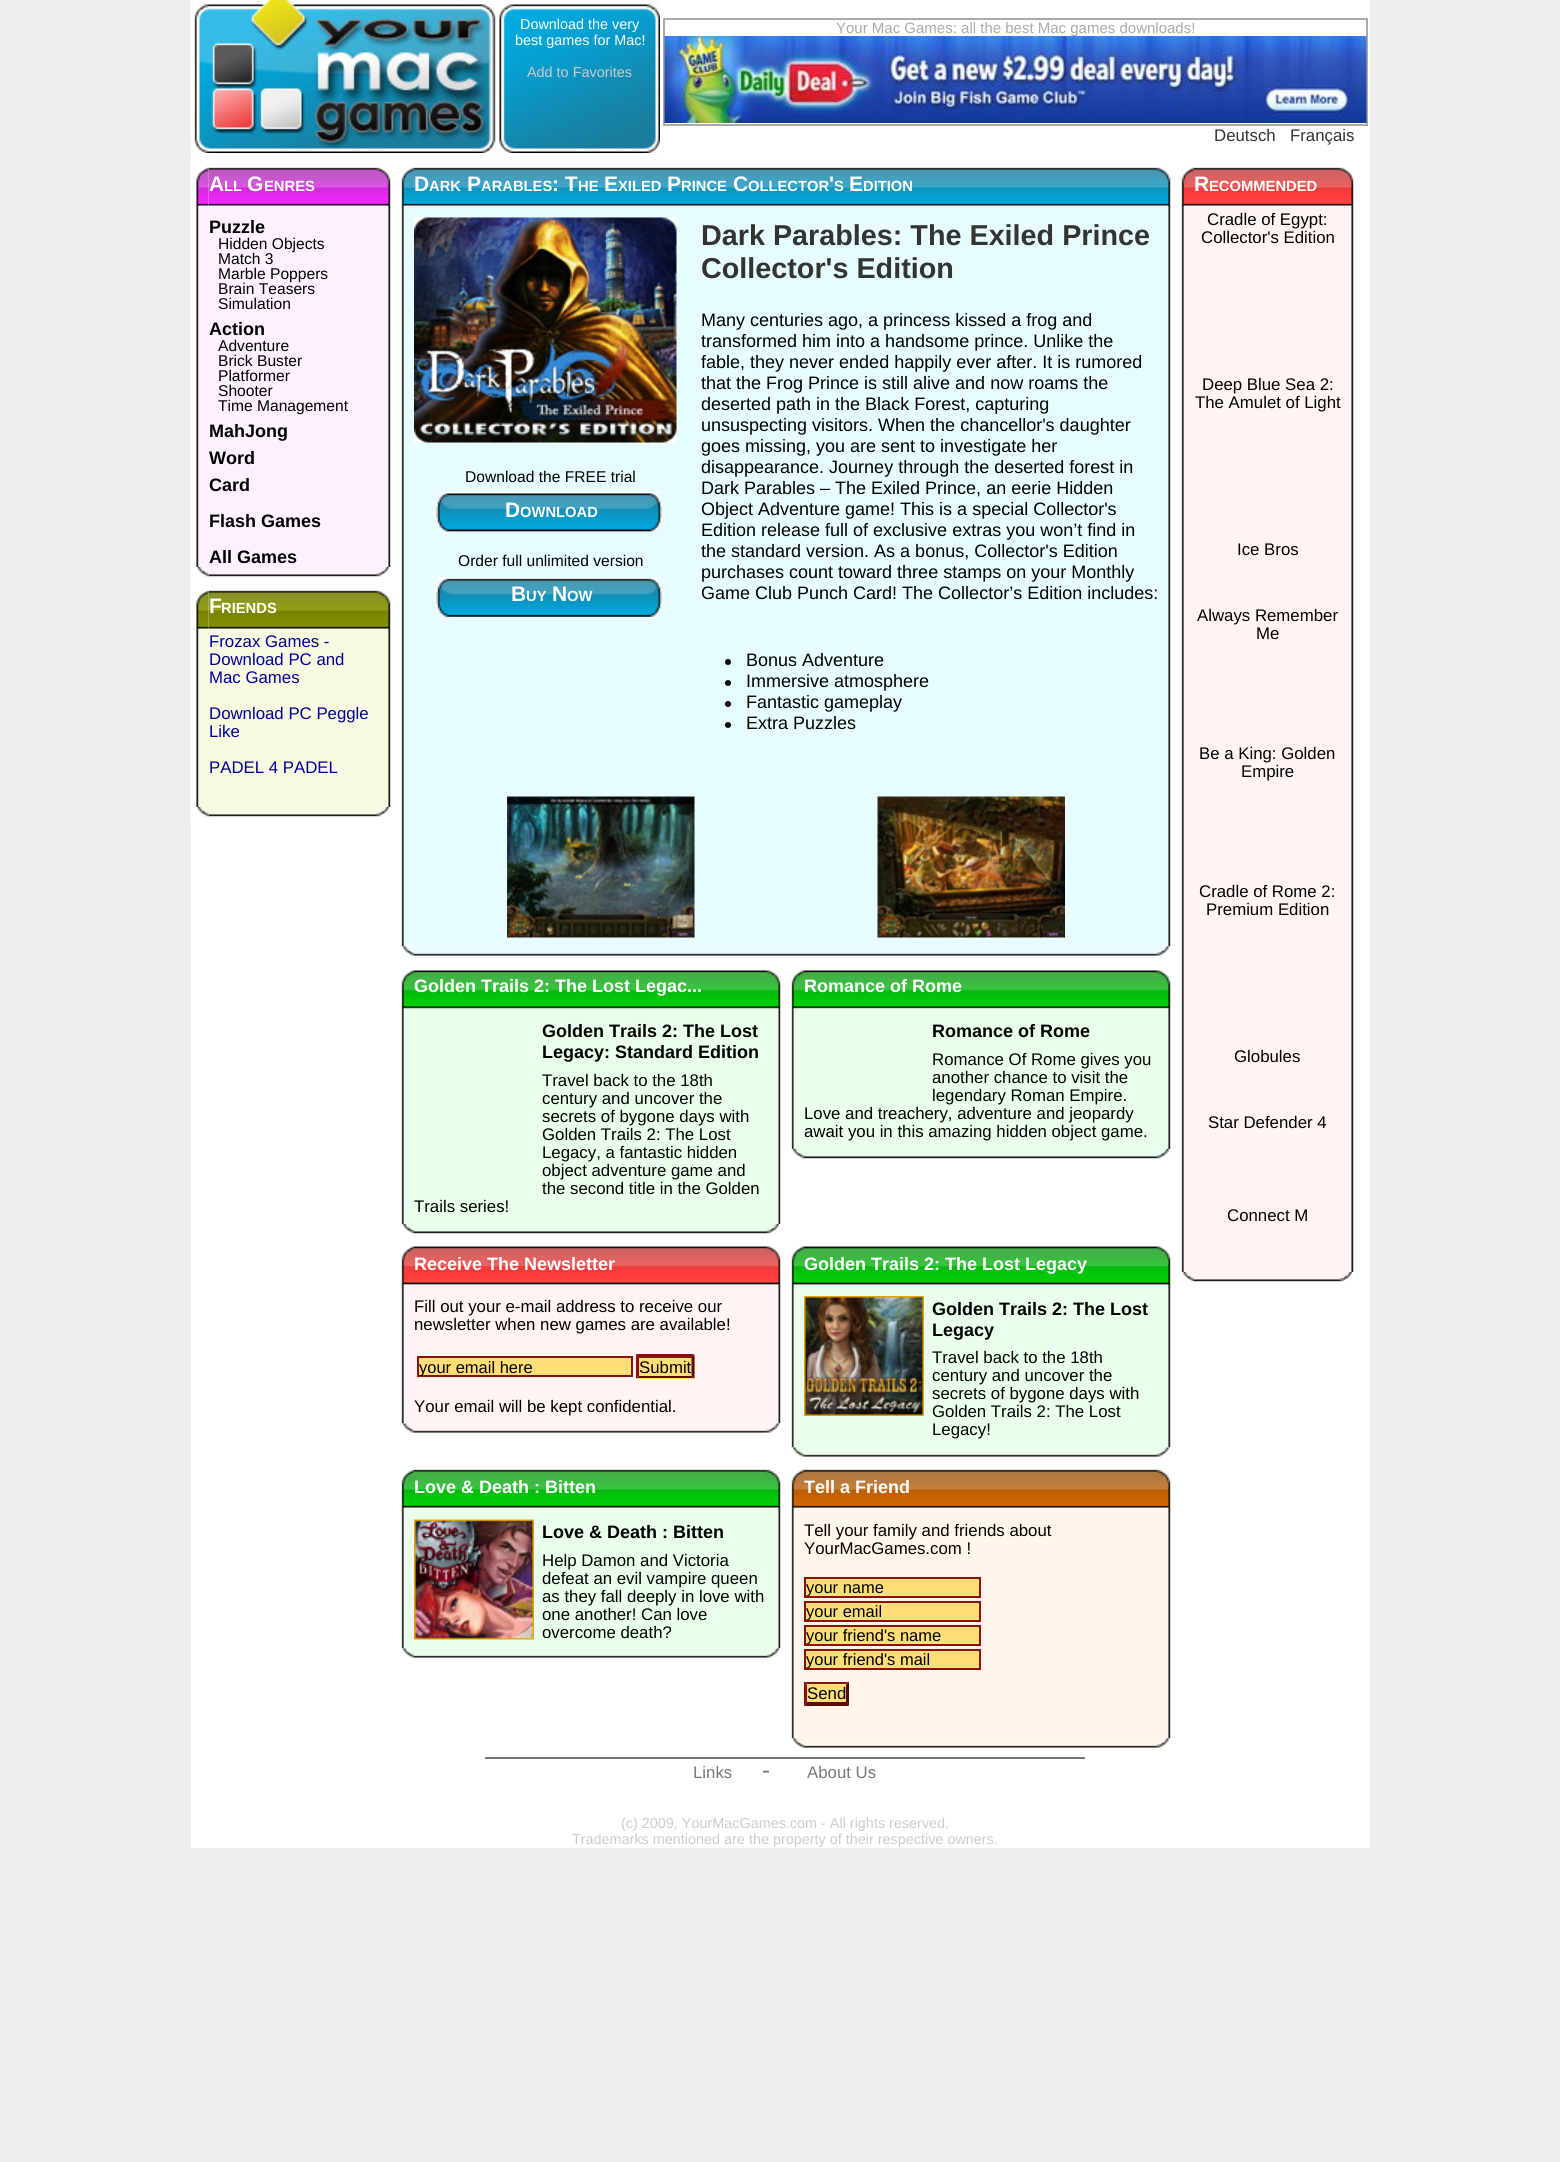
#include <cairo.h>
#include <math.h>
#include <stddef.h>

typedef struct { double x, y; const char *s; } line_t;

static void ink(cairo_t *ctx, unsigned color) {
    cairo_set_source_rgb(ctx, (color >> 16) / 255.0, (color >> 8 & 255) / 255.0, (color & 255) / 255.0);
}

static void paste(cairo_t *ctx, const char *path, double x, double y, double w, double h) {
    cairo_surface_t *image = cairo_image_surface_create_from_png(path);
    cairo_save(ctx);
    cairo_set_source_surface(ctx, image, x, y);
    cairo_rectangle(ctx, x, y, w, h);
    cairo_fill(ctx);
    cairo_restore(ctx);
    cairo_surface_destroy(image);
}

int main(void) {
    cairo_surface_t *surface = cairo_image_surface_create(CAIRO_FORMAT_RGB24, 1560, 2162);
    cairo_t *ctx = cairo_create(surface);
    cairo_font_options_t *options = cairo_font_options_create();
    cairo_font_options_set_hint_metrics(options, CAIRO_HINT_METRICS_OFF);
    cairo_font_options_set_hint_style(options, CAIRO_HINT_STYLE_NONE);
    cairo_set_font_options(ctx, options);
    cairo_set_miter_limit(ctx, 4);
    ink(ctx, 0xEEEEEE);
    cairo_paint(ctx);
    ink(ctx, 0xFFFFFF);
    cairo_rectangle(ctx, 191, 0, 1179, 1848);
    cairo_fill(ctx);
    paste(ctx, "media/1.png", 190, 0, 470, 153);
    cairo_select_font_face(ctx, "Liberation Sans", CAIRO_FONT_SLANT_NORMAL, CAIRO_FONT_WEIGHT_NORMAL);
    cairo_set_font_size(ctx, 14.4);
    cairo_move_to(ctx, 520, 29);
    cairo_show_text(ctx, "Download the very");
    cairo_move_to(ctx, 515, 45);
    cairo_show_text(ctx, "best games for Mac!");
    ink(ctx, 0xCCCCCC);
    cairo_move_to(ctx, 527, 77);
    cairo_show_text(ctx, "Add to Favorites");
    cairo_rectangle(ctx, 664, 19, 703, 106);
    ink(ctx, 0xAAAAAA);
    cairo_stroke(ctx);
    cairo_set_font_size(ctx, 15);
    cairo_move_to(ctx, 836, 33);
    cairo_show_text(ctx, "Your Mac Games: all the best Mac games downloads!");
    paste(ctx, "media/2.png", 664, 36, 703, 87);
    cairo_set_font_size(ctx, 16.8);
    ink(ctx, 0x333333);
    cairo_move_to(ctx, 1214, 141);
    cairo_show_text(ctx, "Deutsch");
    cairo_move_to(ctx, 1290, 141);
    cairo_show_text(ctx, "Français");
    paste(ctx, "media/3.png", 208, 167, 183, 400);
    cairo_select_font_face(ctx, "Liberation Sans", CAIRO_FONT_SLANT_NORMAL, CAIRO_FONT_WEIGHT_BOLD);
    cairo_set_font_size(ctx, 18);
    ink(ctx, 0x000000);
    {
        static const line_t items[] = {
            {209, 335, "Action"},
            {209, 464, "Word"},
            {209, 563, "All Games"},
        };
        for (size_t i = 0; i < sizeof items / sizeof *items; i++) {
            cairo_move_to(ctx, items[i].x, items[i].y);
            cairo_show_text(ctx, items[i].s);
        }
    }
    paste(ctx, "media/4.png", 190, 162, 19, 405);
    cairo_set_font_size(ctx, 21);
    ink(ctx, 0xFFFFFF);
    cairo_move_to(ctx, 209, 191);
    cairo_show_text(ctx, "A");
    cairo_set_font_size(ctx, 14.75);
    cairo_move_to(ctx, 224, 191);
    cairo_show_text(ctx, "LL");
    cairo_set_font_size(ctx, 21);
    cairo_move_to(ctx, 247, 191);
    cairo_show_text(ctx, "G");
    cairo_set_font_size(ctx, 14.75);
    cairo_move_to(ctx, 264, 191);
    cairo_show_text(ctx, "ENRES");
    cairo_set_font_size(ctx, 18);
    ink(ctx, 0x000000);
    cairo_move_to(ctx, 209, 233);
    cairo_show_text(ctx, "Puzzle");
    cairo_select_font_face(ctx, "Liberation Sans", CAIRO_FONT_SLANT_NORMAL, CAIRO_FONT_WEIGHT_NORMAL);
    cairo_set_font_size(ctx, 15.6);
    {
        static const line_t items[] = {
            {218, 249, "Hidden Objects"},
            {218, 264, "Match 3"},
            {218, 279, "Marble Poppers"},
            {218, 294, "Brain Teasers"},
            {218, 309, "Simulation"},
            {218, 351, "Adventure"},
            {218, 366, "Brick Buster"},
            {218, 381, "Platformer"},
            {218, 396, "Shooter"},
            {218, 411, "Time Management"},
        };
        for (size_t i = 0; i < sizeof items / sizeof *items; i++) {
            cairo_move_to(ctx, items[i].x, items[i].y);
            cairo_show_text(ctx, items[i].s);
        }
    }
    cairo_select_font_face(ctx, "Liberation Sans", CAIRO_FONT_SLANT_NORMAL, CAIRO_FONT_WEIGHT_BOLD);
    cairo_set_font_size(ctx, 18);
    {
        static const line_t items[] = {
            {209, 437, "MahJong"},
            {209, 491, "Card"},
            {209, 527, "Flash Games"},
        };
        for (size_t i = 0; i < sizeof items / sizeof *items; i++) {
            cairo_move_to(ctx, items[i].x, items[i].y);
            cairo_show_text(ctx, items[i].s);
        }
    }
    paste(ctx, "media/5.png", 208, 567, 182, 10);
    paste(ctx, "media/6.png", 190, 567, 19, 15);
    paste(ctx, "media/7.png", 208, 590, 183, 217);
    paste(ctx, "media/8.png", 190, 585, 19, 222);
    cairo_set_font_size(ctx, 21);
    ink(ctx, 0xFFFFFF);
    cairo_move_to(ctx, 209, 613);
    cairo_show_text(ctx, "F");
    cairo_set_font_size(ctx, 14.75);
    cairo_move_to(ctx, 221, 613);
    cairo_show_text(ctx, "RIENDS");
    cairo_select_font_face(ctx, "Liberation Sans", CAIRO_FONT_SLANT_NORMAL, CAIRO_FONT_WEIGHT_NORMAL);
    cairo_set_font_size(ctx, 16.8);
    ink(ctx, 0x000099);
    {
        static const line_t items[] = {
            {209, 647, "Frozax Games -"},
            {209, 665, "Download PC and"},
            {209, 683, "Mac Games"},
            {209, 719, "Download PC Peggle"},
            {209, 737, "Like"},
            {209, 773, "PADEL 4 PADEL"},
        };
        for (size_t i = 0; i < sizeof items / sizeof *items; i++) {
            cairo_move_to(ctx, items[i].x, items[i].y);
            cairo_show_text(ctx, items[i].s);
        }
    }
    paste(ctx, "media/9.png", 208, 807, 182, 10);
    paste(ctx, "media/10.png", 190, 807, 19, 15);
    paste(ctx, "media/11.png", 414, 167, 757, 780);
    paste(ctx, "media/12.png", 401, 167, 13, 780);
    cairo_select_font_face(ctx, "Liberation Sans", CAIRO_FONT_SLANT_NORMAL, CAIRO_FONT_WEIGHT_BOLD);
    cairo_set_font_size(ctx, 21);
    ink(ctx, 0xFFFFFF);
    cairo_move_to(ctx, 414, 191);
    cairo_show_text(ctx, "D");
    cairo_set_font_size(ctx, 14.75);
    cairo_move_to(ctx, 429, 191);
    cairo_show_text(ctx, "ARK");
    cairo_set_font_size(ctx, 21);
    cairo_move_to(ctx, 467, 191);
    cairo_show_text(ctx, "P");
    cairo_set_font_size(ctx, 14.75);
    cairo_move_to(ctx, 481, 191);
    cairo_show_text(ctx, "ARABLES");
    cairo_set_font_size(ctx, 21);
    cairo_move_to(ctx, 552, 191);
    cairo_show_text(ctx, ": T");
    cairo_set_font_size(ctx, 14.75);
    cairo_move_to(ctx, 578, 191);
    cairo_show_text(ctx, "HE");
    cairo_set_font_size(ctx, 21);
    cairo_move_to(ctx, 604, 191);
    cairo_show_text(ctx, "E");
    cairo_set_font_size(ctx, 14.75);
    cairo_move_to(ctx, 618, 191);
    cairo_show_text(ctx, "XILED");
    cairo_set_font_size(ctx, 21);
    cairo_move_to(ctx, 667, 191);
    cairo_show_text(ctx, "P");
    cairo_set_font_size(ctx, 14.75);
    cairo_move_to(ctx, 681, 191);
    cairo_show_text(ctx, "RINCE");
    cairo_set_font_size(ctx, 21);
    cairo_move_to(ctx, 733, 191);
    cairo_show_text(ctx, "C");
    cairo_set_font_size(ctx, 14.75);
    cairo_move_to(ctx, 748, 191);
    cairo_show_text(ctx, "OLLECTOR");
    cairo_set_font_size(ctx, 21);
    cairo_move_to(ctx, 829, 191);
    cairo_show_text(ctx, "'");
    cairo_set_font_size(ctx, 14.75);
    cairo_move_to(ctx, 834, 191);
    cairo_show_text(ctx, "S");
    cairo_set_font_size(ctx, 21);
    cairo_move_to(ctx, 849, 191);
    cairo_show_text(ctx, "E");
    cairo_set_font_size(ctx, 14.75);
    cairo_move_to(ctx, 863, 191);
    cairo_show_text(ctx, "DITION");
    paste(ctx, "media/13.png", 414, 217, 263, 226);
    cairo_select_font_face(ctx, "Liberation Sans", CAIRO_FONT_SLANT_NORMAL, CAIRO_FONT_WEIGHT_NORMAL);
    cairo_set_font_size(ctx, 15.6);
    ink(ctx, 0x000000);
    cairo_move_to(ctx, 465, 482);
    cairo_show_text(ctx, "Download the FREE trial");
    paste(ctx, "media/14.png", 436, 493, 226, 39);
    paste(ctx, "media/15.png", 436, 492, 226, 40);
    cairo_select_font_face(ctx, "Liberation Sans", CAIRO_FONT_SLANT_NORMAL, CAIRO_FONT_WEIGHT_BOLD);
    cairo_set_font_size(ctx, 21);
    ink(ctx, 0xFFFFFF);
    cairo_move_to(ctx, 505, 517);
    cairo_show_text(ctx, "D");
    cairo_set_font_size(ctx, 14.75);
    cairo_move_to(ctx, 520, 517);
    cairo_show_text(ctx, "OWNLOAD");
    cairo_select_font_face(ctx, "Liberation Sans", CAIRO_FONT_SLANT_NORMAL, CAIRO_FONT_WEIGHT_NORMAL);
    cairo_set_font_size(ctx, 15.6);
    ink(ctx, 0x000000);
    cairo_move_to(ctx, 458, 566);
    cairo_show_text(ctx, "Order full unlimited version");
    paste(ctx, "media/16.png", 436, 578, 226, 39);
    paste(ctx, "media/17.png", 436, 577, 226, 40);
    cairo_select_font_face(ctx, "Liberation Sans", CAIRO_FONT_SLANT_NORMAL, CAIRO_FONT_WEIGHT_BOLD);
    cairo_set_font_size(ctx, 21);
    ink(ctx, 0xFFFFFF);
    cairo_move_to(ctx, 511, 601);
    cairo_show_text(ctx, "B");
    cairo_set_font_size(ctx, 14.75);
    cairo_move_to(ctx, 526, 601);
    cairo_show_text(ctx, "UY");
    cairo_set_font_size(ctx, 21);
    cairo_move_to(ctx, 552, 601);
    cairo_show_text(ctx, "N");
    cairo_set_font_size(ctx, 14.75);
    cairo_move_to(ctx, 567, 601);
    cairo_show_text(ctx, "OW");
    cairo_set_font_size(ctx, 28.75);
    ink(ctx, 0x333333);
    cairo_move_to(ctx, 701, 245);
    cairo_show_text(ctx, "Dark Parables: The Exiled Prince");
    cairo_move_to(ctx, 701, 278);
    cairo_show_text(ctx, "Collector's Edition");
    cairo_select_font_face(ctx, "Liberation Sans", CAIRO_FONT_SLANT_NORMAL, CAIRO_FONT_WEIGHT_NORMAL);
    cairo_set_font_size(ctx, 18);
    ink(ctx, 0x000000);
    {
        static const line_t items[] = {
            {701, 326, "Many centuries ago, a princess kissed a frog and"},
            {701, 347, "transformed him into a handsome prince. Unlike the"},
            {701, 368, "fable, they never ended happily ever after. It is rumored"},
            {701, 389, "that the Frog Prince is still alive and now roams the"},
            {701, 410, "deserted path in the Black Forest, capturing"},
            {701, 431, "unsuspecting visitors. When the chancellor's daughter"},
            {701, 452, "goes missing, you are sent to investigate her"},
            {701, 473, "disappearance. Journey through the deserted forest in"},
            {701, 494, "Dark Parables – The Exiled Prince, an eerie Hidden"},
            {701, 515, "Object Adventure game! This is a special Collector's"},
            {701, 536, "Edition release full of exclusive extras you won’t find in"},
            {701, 557, "the standard version. As a bonus, Collector's Edition"},
            {701, 578, "purchases count toward three stamps on your Monthly"},
            {701, 599, "Game Club Punch Card! The Collector’s Edition includes:"},
        };
        for (size_t i = 0; i < sizeof items / sizeof *items; i++) {
            cairo_move_to(ctx, items[i].x, items[i].y);
            cairo_show_text(ctx, items[i].s);
        }
    }
    cairo_new_path(ctx);
    cairo_arc(ctx, 728, 662, 3, 0, 2 * M_PI);
    cairo_fill(ctx);
    cairo_move_to(ctx, 746, 666);
    cairo_show_text(ctx, "Bonus Adventure");
    cairo_new_path(ctx);
    cairo_arc(ctx, 728, 683, 3, 0, 2 * M_PI);
    cairo_fill(ctx);
    cairo_move_to(ctx, 746, 687);
    cairo_show_text(ctx, "Immersive atmosphere");
    cairo_new_path(ctx);
    cairo_arc(ctx, 728, 704, 3, 0, 2 * M_PI);
    cairo_fill(ctx);
    cairo_move_to(ctx, 746, 708);
    cairo_show_text(ctx, "Fantastic gameplay");
    cairo_new_path(ctx);
    cairo_arc(ctx, 728, 725, 3, 0, 2 * M_PI);
    cairo_fill(ctx);
    cairo_move_to(ctx, 746, 729);
    cairo_show_text(ctx, "Extra Puzzles");
    paste(ctx, "media/18.png", 507, 796, 188, 142);
    paste(ctx, "media/19.png", 877, 796, 188, 142);
    paste(ctx, "media/20.png", 414, 946, 757, 10);
    paste(ctx, "media/21.png", 401, 946, 13, 10);
    paste(ctx, "media/22.png", 414, 970, 367, 254);
    paste(ctx, "media/23.png", 401, 970, 13, 254);
    cairo_select_font_face(ctx, "Liberation Sans", CAIRO_FONT_SLANT_NORMAL, CAIRO_FONT_WEIGHT_BOLD);
    ink(ctx, 0xFFFFFF);
    cairo_move_to(ctx, 414, 992);
    cairo_show_text(ctx, "Golden Trails 2: The Lost Legac...");
    ink(ctx, 0x000000);
    cairo_move_to(ctx, 542, 1037);
    cairo_show_text(ctx, "Golden Trails 2: The Lost");
    cairo_move_to(ctx, 542, 1058);
    cairo_show_text(ctx, "Legacy: Standard Edition");
    cairo_select_font_face(ctx, "Liberation Sans", CAIRO_FONT_SLANT_NORMAL, CAIRO_FONT_WEIGHT_NORMAL);
    cairo_set_font_size(ctx, 16.8);
    {
        static const line_t items[] = {
            {542, 1086, "Travel back to the 18th"},
            {542, 1104, "century and uncover the"},
            {542, 1122, "secrets of bygone days with"},
            {542, 1140, "Golden Trails 2: The Lost"},
            {542, 1158, "Legacy, a fantastic hidden"},
            {542, 1176, "object adventure game and"},
            {542, 1194, "the second title in the Golden"},
            {414, 1212, "Trails series!"},
        };
        for (size_t i = 0; i < sizeof items / sizeof *items; i++) {
            cairo_move_to(ctx, items[i].x, items[i].y);
            cairo_show_text(ctx, items[i].s);
        }
    }
    paste(ctx, "media/24.png", 414, 1224, 366, 10);
    paste(ctx, "media/25.png", 402, 1224, 12, 10);
    paste(ctx, "media/26.png", 804, 970, 367, 179);
    paste(ctx, "media/27.png", 791, 970, 13, 179);
    cairo_select_font_face(ctx, "Liberation Sans", CAIRO_FONT_SLANT_NORMAL, CAIRO_FONT_WEIGHT_BOLD);
    cairo_set_font_size(ctx, 18);
    ink(ctx, 0xFFFFFF);
    cairo_move_to(ctx, 804, 992);
    cairo_show_text(ctx, "Romance of Rome");
    ink(ctx, 0x000000);
    cairo_move_to(ctx, 932, 1037);
    cairo_show_text(ctx, "Romance of Rome");
    cairo_select_font_face(ctx, "Liberation Sans", CAIRO_FONT_SLANT_NORMAL, CAIRO_FONT_WEIGHT_NORMAL);
    cairo_set_font_size(ctx, 16.8);
    {
        static const line_t items[] = {
            {932, 1065, "Romance Of Rome gives you"},
            {932, 1083, "another chance to visit the"},
            {932, 1101, "legendary Roman Empire."},
            {804, 1119, "Love and treachery, adventure and jeopardy"},
            {804, 1137, "await you in this amazing hidden object game."},
        };
        for (size_t i = 0; i < sizeof items / sizeof *items; i++) {
            cairo_move_to(ctx, items[i].x, items[i].y);
            cairo_show_text(ctx, items[i].s);
        }
    }
    paste(ctx, "media/28.png", 804, 1149, 366, 10);
    paste(ctx, "media/29.png", 792, 1149, 12, 10);
    paste(ctx, "media/30.png", 414, 1246, 367, 178);
    paste(ctx, "media/31.png", 401, 1246, 13, 178);
    cairo_select_font_face(ctx, "Liberation Sans", CAIRO_FONT_SLANT_NORMAL, CAIRO_FONT_WEIGHT_BOLD);
    cairo_set_font_size(ctx, 18);
    ink(ctx, 0xFFFFFF);
    cairo_move_to(ctx, 414, 1270);
    cairo_show_text(ctx, "Receive The Newsletter");
    cairo_select_font_face(ctx, "Liberation Sans", CAIRO_FONT_SLANT_NORMAL, CAIRO_FONT_WEIGHT_NORMAL);
    cairo_set_font_size(ctx, 16.8);
    ink(ctx, 0x000000);
    cairo_move_to(ctx, 414, 1312);
    cairo_show_text(ctx, "Fill out your e-mail address to receive our");
    cairo_move_to(ctx, 414, 1330);
    cairo_show_text(ctx, "newsletter when new games are available!");
    ink(ctx, 0xFFDD77);
    cairo_rectangle(ctx, 418, 1357, 214, 19);
    cairo_fill_preserve(ctx);
    ink(ctx, 0x881111);
    cairo_stroke(ctx);
    cairo_save(ctx);
    cairo_rectangle(ctx, 419, 1358, 213, 18);
    cairo_clip(ctx);
    cairo_set_font_size(ctx, 16.5);
    ink(ctx, 0x000000);
    cairo_move_to(ctx, 419, 1373);
    cairo_show_text(ctx, "your email here");
    cairo_restore(ctx);
    ink(ctx, 0xFFDD77);
    cairo_rectangle(ctx, 636, 1355, 59, 24);
    cairo_fill(ctx);
    ink(ctx, 0x881111);
    cairo_new_path(ctx);
    cairo_move_to(ctx, 636, 1354);
    cairo_line_to(ctx, 694, 1354);
    cairo_line_to(ctx, 692, 1358);
    cairo_line_to(ctx, 639, 1358);
    cairo_close_path(ctx);
    cairo_fill(ctx);
    ink(ctx, 0x5B0B0B);
    cairo_new_path(ctx);
    cairo_move_to(ctx, 694.5, 1354.5);
    cairo_line_to(ctx, 694.5, 1378.5);
    cairo_line_to(ctx, 691.5, 1375.5);
    cairo_line_to(ctx, 691.5, 1357.5);
    cairo_close_path(ctx);
    cairo_fill(ctx);
    cairo_new_path(ctx);
    cairo_move_to(ctx, 694, 1378);
    cairo_line_to(ctx, 636, 1378);
    cairo_line_to(ctx, 639, 1376);
    cairo_line_to(ctx, 692, 1376);
    cairo_close_path(ctx);
    cairo_fill(ctx);
    ink(ctx, 0x881111);
    cairo_new_path(ctx);
    cairo_move_to(ctx, 636, 1378.5);
    cairo_line_to(ctx, 636, 1354.5);
    cairo_line_to(ctx, 639, 1357.5);
    cairo_line_to(ctx, 639, 1375.5);
    cairo_close_path(ctx);
    cairo_fill(ctx);
    ink(ctx, 0x000000);
    cairo_move_to(ctx, 639, 1373);
    cairo_show_text(ctx, "Submit");
    cairo_move_to(ctx, 414, 1412);
    cairo_show_text(ctx, "Your email will be kept confidential.");
    paste(ctx, "media/32.png", 414, 1423, 367, 10);
    paste(ctx, "media/33.png", 401, 1423, 13, 10);
    paste(ctx, "media/34.png", 804, 1246, 367, 202);
    paste(ctx, "media/35.png", 791, 1246, 13, 202);
    cairo_select_font_face(ctx, "Liberation Sans", CAIRO_FONT_SLANT_NORMAL, CAIRO_FONT_WEIGHT_BOLD);
    cairo_set_font_size(ctx, 18);
    ink(ctx, 0xFFFFFF);
    cairo_move_to(ctx, 804, 1270);
    cairo_show_text(ctx, "Golden Trails 2: The Lost Legacy");
    paste(ctx, "media/36.png", 804, 1296, 120, 120);
    ink(ctx, 0x000000);
    cairo_move_to(ctx, 932, 1315);
    cairo_show_text(ctx, "Golden Trails 2: The Lost");
    cairo_move_to(ctx, 932, 1336);
    cairo_show_text(ctx, "Legacy");
    cairo_select_font_face(ctx, "Liberation Sans", CAIRO_FONT_SLANT_NORMAL, CAIRO_FONT_WEIGHT_NORMAL);
    cairo_set_font_size(ctx, 16.8);
    {
        static const line_t items[] = {
            {932, 1363, "Travel back to the 18th"},
            {932, 1381, "century and uncover the"},
            {932, 1399, "secrets of bygone days with"},
            {932, 1417, "Golden Trails 2: The Lost"},
            {932, 1435, "Legacy!"},
        };
        for (size_t i = 0; i < sizeof items / sizeof *items; i++) {
            cairo_move_to(ctx, items[i].x, items[i].y);
            cairo_show_text(ctx, items[i].s);
        }
    }
    paste(ctx, "media/37.png", 804, 1447, 367, 10);
    paste(ctx, "media/38.png", 791, 1447, 13, 10);
    paste(ctx, "media/39.png", 414, 1469, 367, 180);
    paste(ctx, "media/40.png", 401, 1469, 13, 180);
    cairo_select_font_face(ctx, "Liberation Sans", CAIRO_FONT_SLANT_NORMAL, CAIRO_FONT_WEIGHT_BOLD);
    cairo_set_font_size(ctx, 18);
    ink(ctx, 0xFFFFFF);
    cairo_move_to(ctx, 414, 1493);
    cairo_show_text(ctx, "Love & Death : Bitten");
    paste(ctx, "media/41.png", 414, 1519, 120, 121);
    ink(ctx, 0x000000);
    cairo_move_to(ctx, 542, 1538);
    cairo_show_text(ctx, "Love & Death : Bitten");
    cairo_select_font_face(ctx, "Liberation Sans", CAIRO_FONT_SLANT_NORMAL, CAIRO_FONT_WEIGHT_NORMAL);
    cairo_set_font_size(ctx, 16.8);
    {
        static const line_t items[] = {
            {542, 1566, "Help Damon and Victoria"},
            {542, 1584, "defeat an evil vampire queen"},
            {542, 1602, "as they fall deeply in love with"},
            {542, 1620, "one another! Can love"},
            {542, 1638, "overcome death?"},
        };
        for (size_t i = 0; i < sizeof items / sizeof *items; i++) {
            cairo_move_to(ctx, items[i].x, items[i].y);
            cairo_show_text(ctx, items[i].s);
        }
    }
    paste(ctx, "media/42.png", 414, 1648, 367, 10);
    paste(ctx, "media/43.png", 401, 1648, 13, 10);
    paste(ctx, "media/44.png", 804, 1469, 367, 270);
    paste(ctx, "media/45.png", 791, 1469, 13, 270);
    cairo_select_font_face(ctx, "Liberation Sans", CAIRO_FONT_SLANT_NORMAL, CAIRO_FONT_WEIGHT_BOLD);
    cairo_set_font_size(ctx, 18);
    ink(ctx, 0xFFFFFF);
    cairo_move_to(ctx, 804, 1493);
    cairo_show_text(ctx, "Tell a Friend");
    cairo_select_font_face(ctx, "Liberation Sans", CAIRO_FONT_SLANT_NORMAL, CAIRO_FONT_WEIGHT_NORMAL);
    cairo_set_font_size(ctx, 16.8);
    ink(ctx, 0x000000);
    cairo_move_to(ctx, 804, 1536);
    cairo_show_text(ctx, "Tell your family and friends about");
    cairo_move_to(ctx, 804, 1554);
    cairo_show_text(ctx, "YourMacGames.com !");
    ink(ctx, 0xFFDD77);
    cairo_rectangle(ctx, 805, 1578, 175, 19);
    cairo_fill_preserve(ctx);
    ink(ctx, 0x881111);
    cairo_stroke(ctx);
    cairo_save(ctx);
    cairo_rectangle(ctx, 806, 1578, 174, 18);
    cairo_clip(ctx);
    cairo_set_font_size(ctx, 16.5);
    ink(ctx, 0x000000);
    cairo_move_to(ctx, 806, 1593);
    cairo_show_text(ctx, "your name");
    cairo_restore(ctx);
    ink(ctx, 0xFFDD77);
    cairo_rectangle(ctx, 805, 1602, 175, 19);
    cairo_fill_preserve(ctx);
    ink(ctx, 0x881111);
    cairo_stroke(ctx);
    cairo_save(ctx);
    cairo_rectangle(ctx, 806, 1602, 174, 18);
    cairo_clip(ctx);
    cairo_set_font_size(ctx, 16.5);
    ink(ctx, 0x000000);
    cairo_move_to(ctx, 806, 1617);
    cairo_show_text(ctx, "your email");
    cairo_restore(ctx);
    ink(ctx, 0xFFDD77);
    cairo_rectangle(ctx, 805, 1626, 175, 19);
    cairo_fill_preserve(ctx);
    ink(ctx, 0x881111);
    cairo_stroke(ctx);
    cairo_save(ctx);
    cairo_rectangle(ctx, 806, 1626, 174, 18);
    cairo_clip(ctx);
    cairo_set_font_size(ctx, 16.5);
    ink(ctx, 0x000000);
    cairo_move_to(ctx, 806, 1641);
    cairo_show_text(ctx, "your friend's name");
    cairo_restore(ctx);
    ink(ctx, 0xFFDD77);
    cairo_rectangle(ctx, 805, 1650, 175, 19);
    cairo_fill_preserve(ctx);
    ink(ctx, 0x881111);
    cairo_stroke(ctx);
    cairo_save(ctx);
    cairo_rectangle(ctx, 806, 1650, 174, 18);
    cairo_clip(ctx);
    cairo_set_font_size(ctx, 16.5);
    ink(ctx, 0x000000);
    cairo_move_to(ctx, 806, 1665);
    cairo_show_text(ctx, "your friend's mail");
    cairo_restore(ctx);
    ink(ctx, 0xFFDD77);
    cairo_rectangle(ctx, 804, 1682, 45, 24);
    cairo_fill(ctx);
    ink(ctx, 0x881111);
    cairo_new_path(ctx);
    cairo_move_to(ctx, 804, 1682);
    cairo_line_to(ctx, 849, 1682);
    cairo_line_to(ctx, 846, 1684);
    cairo_line_to(ctx, 807, 1684);
    cairo_close_path(ctx);
    cairo_fill(ctx);
    ink(ctx, 0x5B0B0B);
    cairo_new_path(ctx);
    cairo_move_to(ctx, 849, 1681.5);
    cairo_line_to(ctx, 849, 1705.5);
    cairo_line_to(ctx, 846, 1702.5);
    cairo_line_to(ctx, 846, 1684.5);
    cairo_close_path(ctx);
    cairo_fill(ctx);
    cairo_new_path(ctx);
    cairo_move_to(ctx, 849, 1706);
    cairo_line_to(ctx, 804, 1706);
    cairo_line_to(ctx, 807, 1702);
    cairo_line_to(ctx, 846, 1702);
    cairo_close_path(ctx);
    cairo_fill(ctx);
    ink(ctx, 0x881111);
    cairo_new_path(ctx);
    cairo_move_to(ctx, 804, 1705.5);
    cairo_line_to(ctx, 804, 1681.5);
    cairo_line_to(ctx, 807, 1684.5);
    cairo_line_to(ctx, 807, 1702.5);
    cairo_close_path(ctx);
    cairo_fill(ctx);
    ink(ctx, 0x000000);
    cairo_move_to(ctx, 807, 1699);
    cairo_show_text(ctx, "Send");
    paste(ctx, "media/46.png", 804, 1738, 367, 10);
    paste(ctx, "media/47.png", 791, 1738, 13, 10);
    paste(ctx, "media/48.png", 1194, 167, 160, 1105);
    paste(ctx, "media/49.png", 1181, 167, 13, 1105);
    cairo_select_font_face(ctx, "Liberation Sans", CAIRO_FONT_SLANT_NORMAL, CAIRO_FONT_WEIGHT_BOLD);
    cairo_set_font_size(ctx, 21);
    ink(ctx, 0xFFFFFF);
    cairo_move_to(ctx, 1194, 191);
    cairo_show_text(ctx, "R");
    cairo_set_font_size(ctx, 14.75);
    cairo_move_to(ctx, 1209, 191);
    cairo_show_text(ctx, "ECOMMENDED");
    cairo_select_font_face(ctx, "Liberation Sans", CAIRO_FONT_SLANT_NORMAL, CAIRO_FONT_WEIGHT_NORMAL);
    cairo_set_font_size(ctx, 16.8);
    ink(ctx, 0x000000);
    {
        static const line_t items[] = {
            {1207, 225, "Cradle of Egypt:"},
            {1201, 243, "Collector's Edition"},
            {1202, 390, "Deep Blue Sea 2:"},
            {1195, 408, "The Amulet of Light"},
            {1237, 555, "Ice Bros"},
            {1197, 621, "Always Remember"},
            {1256, 639, "Me"},
            {1199, 759, "Be a King: Golden"},
            {1241, 777, "Empire"},
            {1199, 897, "Cradle of Rome 2:"},
            {1206, 915, "Premium Edition"},
            {1234, 1062, "Globules"},
            {1208, 1128, "Star Defender 4"},
            {1227, 1221, "Connect M"},
        };
        for (size_t i = 0; i < sizeof items / sizeof *items; i++) {
            cairo_move_to(ctx, items[i].x, items[i].y);
            cairo_show_text(ctx, items[i].s);
        }
    }
    paste(ctx, "media/50.png", 1194, 1272, 159, 10);
    paste(ctx, "media/51.png", 1182, 1272, 12, 10);
    ink(ctx, 0x777777);
    cairo_rectangle(ctx, 485, 1757, 600, 2);
    cairo_fill(ctx);
    cairo_move_to(ctx, 693, 1778);
    cairo_show_text(ctx, "Links");
    cairo_set_font_size(ctx, 24);
    cairo_move_to(ctx, 762, 1778);
    cairo_show_text(ctx, "-");
    cairo_set_font_size(ctx, 16.8);
    cairo_move_to(ctx, 807, 1778);
    cairo_show_text(ctx, "About Us");
    cairo_set_font_size(ctx, 14.4);
    ink(ctx, 0xCCCCCC);
    cairo_move_to(ctx, 621, 1828);
    cairo_show_text(ctx, "(c) 2009, YourMacGames.com - All rights reserved.");
    cairo_move_to(ctx, 572, 1844);
    cairo_show_text(ctx, "Trademarks mentioned are the property of their respective owners.");
    cairo_surface_write_to_png(surface, "image.png");
    cairo_font_options_destroy(options);
    cairo_destroy(ctx);
    cairo_surface_destroy(surface);
    return 0;
}
